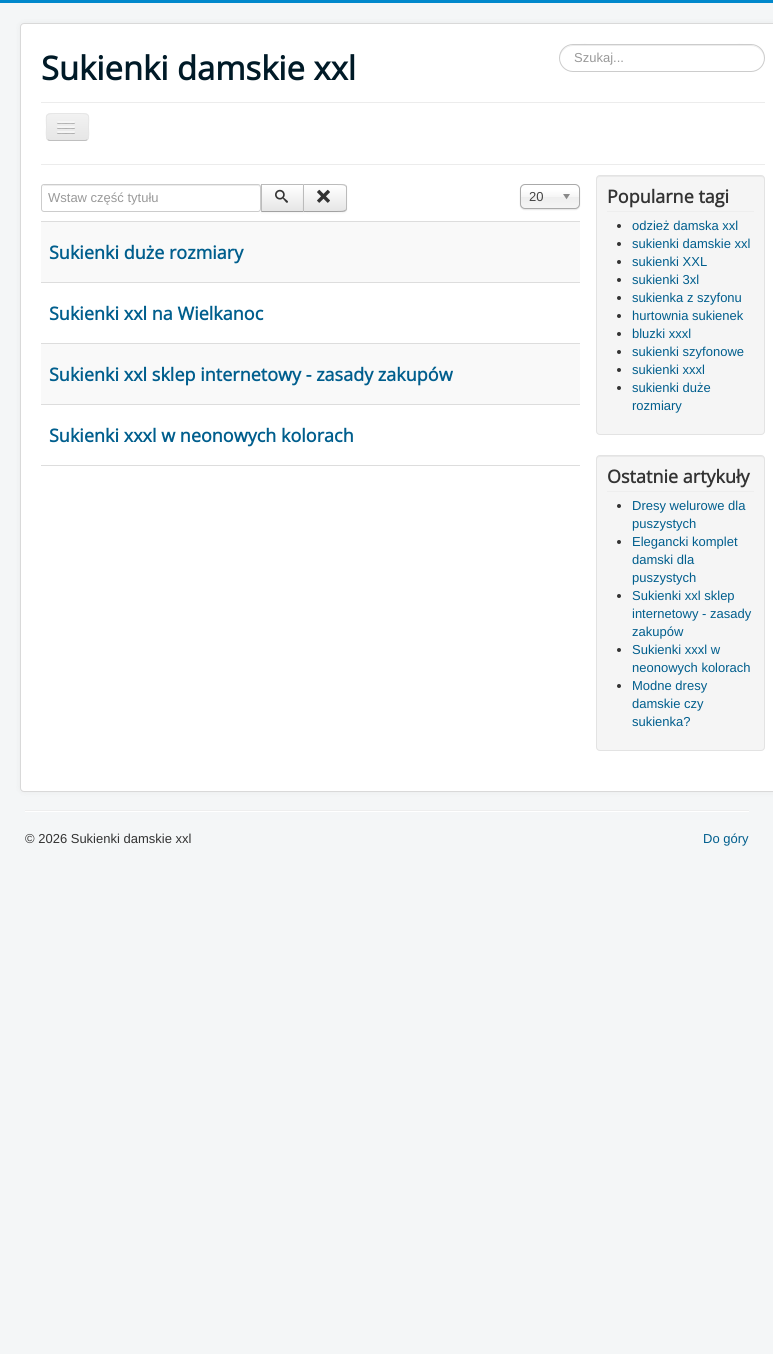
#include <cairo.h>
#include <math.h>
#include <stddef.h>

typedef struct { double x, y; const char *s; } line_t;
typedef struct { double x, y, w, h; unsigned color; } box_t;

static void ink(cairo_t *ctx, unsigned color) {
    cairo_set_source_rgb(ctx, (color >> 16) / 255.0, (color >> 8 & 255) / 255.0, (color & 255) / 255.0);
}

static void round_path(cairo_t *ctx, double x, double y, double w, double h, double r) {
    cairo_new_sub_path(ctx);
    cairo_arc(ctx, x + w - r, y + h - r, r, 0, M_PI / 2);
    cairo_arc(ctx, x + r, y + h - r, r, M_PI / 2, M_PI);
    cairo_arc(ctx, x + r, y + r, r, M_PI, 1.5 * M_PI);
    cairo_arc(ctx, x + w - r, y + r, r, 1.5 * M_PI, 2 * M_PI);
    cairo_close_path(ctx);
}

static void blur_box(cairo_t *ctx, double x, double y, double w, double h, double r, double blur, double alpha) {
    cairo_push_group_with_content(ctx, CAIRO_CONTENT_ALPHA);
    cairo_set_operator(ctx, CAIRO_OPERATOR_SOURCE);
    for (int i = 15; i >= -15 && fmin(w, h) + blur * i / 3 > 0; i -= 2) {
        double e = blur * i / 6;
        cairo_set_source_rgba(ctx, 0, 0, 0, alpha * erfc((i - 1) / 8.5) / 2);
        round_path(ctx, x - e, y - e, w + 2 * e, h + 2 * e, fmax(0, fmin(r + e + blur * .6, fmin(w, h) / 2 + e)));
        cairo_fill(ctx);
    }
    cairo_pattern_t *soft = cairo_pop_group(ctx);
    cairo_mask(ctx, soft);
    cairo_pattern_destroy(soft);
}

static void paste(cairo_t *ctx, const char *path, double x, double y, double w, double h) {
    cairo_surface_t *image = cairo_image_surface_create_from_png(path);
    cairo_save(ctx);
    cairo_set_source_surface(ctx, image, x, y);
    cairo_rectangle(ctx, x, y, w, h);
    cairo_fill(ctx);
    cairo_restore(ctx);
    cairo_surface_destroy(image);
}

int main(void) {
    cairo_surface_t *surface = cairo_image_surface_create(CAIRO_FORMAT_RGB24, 773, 1354);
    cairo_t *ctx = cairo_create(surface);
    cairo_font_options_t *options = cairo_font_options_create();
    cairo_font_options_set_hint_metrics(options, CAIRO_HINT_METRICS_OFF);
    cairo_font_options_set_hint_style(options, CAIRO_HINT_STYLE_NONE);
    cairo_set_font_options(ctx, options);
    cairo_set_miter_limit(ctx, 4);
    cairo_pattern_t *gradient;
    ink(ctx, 0xF4F6F7);
    cairo_paint(ctx);
    ink(ctx, 0x0088CC);
    cairo_rectangle(ctx, 0, 0, 773, 3);
    cairo_fill(ctx);
    ink(ctx, 0x000000);
    blur_box(ctx, 20, 23, 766, 769, 4, 3, 0.05);
    ink(ctx, 0xFFFFFF);
    round_path(ctx, 20, 23, 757, 769, 4);
    cairo_fill(ctx);
    round_path(ctx, 20.5, 23.5, 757, 768, 3.5);
    cairo_set_source_rgba(ctx, 0, 0, 0, 0.15);
    cairo_set_line_width(ctx, 1);
    cairo_stroke(ctx);
    cairo_select_font_face(ctx, "Open Sans", CAIRO_FONT_SLANT_NORMAL, CAIRO_FONT_WEIGHT_BOLD);
    cairo_set_font_size(ctx, 32.75);
    ink(ctx, 0x001A27);
    cairo_move_to(ctx, 41, 80);
    cairo_show_text(ctx, "Sukienki damskie xxl");
    ink(ctx, 0xECECEC);
    cairo_new_path(ctx);
    cairo_move_to(ctx, 573, 46);
    cairo_line_to(ctx, 751, 46);
    cairo_curve_to(ctx, 758, 46, 764, 52, 764, 59);
    cairo_curve_to(ctx, 765, 38, 729, 45, 721, 45);
    cairo_line_to(ctx, 603, 45);
    cairo_curve_to(ctx, 595, 45, 559, 38, 560, 59);
    cairo_curve_to(ctx, 560, 52, 566, 46, 573, 46);
    cairo_close_path(ctx);
    cairo_fill(ctx);
    round_path(ctx, 559.5, 44.5, 205, 27, 13.5);
    ink(ctx, 0xCCCCCC);
    cairo_stroke(ctx);
    cairo_select_font_face(ctx, "Liberation Sans", CAIRO_FONT_SLANT_NORMAL, CAIRO_FONT_WEIGHT_NORMAL);
    cairo_set_font_size(ctx, 13);
    ink(ctx, 0x999999);
    cairo_move_to(ctx, 574, 62);
    cairo_show_text(ctx, "Szukaj...");
    ink(ctx, 0xECECEC);
    cairo_rectangle(ctx, 41, 102, 724, 1);
    cairo_fill(ctx);
    cairo_rectangle(ctx, 41, 164, 724, 1);
    cairo_fill(ctx);
    ink(ctx, 0xEDEDED);
    round_path(ctx, 46, 113, 43, 28, 4);
    cairo_fill(ctx);
    cairo_save(ctx);
    round_path(ctx, 46, 113, 43, 28, 4);
    cairo_clip(ctx);
    gradient = cairo_pattern_create_linear(68, 114, 68, 140);
    cairo_pattern_add_color_stop_rgba(gradient, 0, 0.949, 0.949, 0.949, 1);
    cairo_pattern_add_color_stop_rgba(gradient, 1, 0.902, 0.902, 0.902, 1);
    cairo_set_source(ctx, gradient);
    cairo_pattern_destroy(gradient);
    cairo_rectangle(ctx, 46, 114, 43, 26);
    cairo_fill(ctx);
    cairo_restore(ctx);
    cairo_new_path(ctx);
    cairo_move_to(ctx, 87.5, 139.5);
    cairo_curve_to(ctx, 87, 140, 86, 140.5, 85, 140.5);
    cairo_line_to(ctx, 50, 140.5);
    cairo_curve_to(ctx, 49, 140.5, 48, 140, 47.5, 139.5);
    ink(ctx, 0xBFBFBF);
    cairo_stroke(ctx);
    cairo_new_path(ctx);
    cairo_move_to(ctx, 47.5, 139.5);
    cairo_curve_to(ctx, 45.5, 137, 46.5, 129.5, 46.5, 127);
    cairo_curve_to(ctx, 46.5, 115, 44, 113.5, 56, 113.5);
    cairo_line_to(ctx, 79, 113.5);
    cairo_curve_to(ctx, 91, 113.5, 88.5, 115, 88.5, 127);
    cairo_curve_to(ctx, 88.5, 129.5, 89.5, 137, 87.5, 139.5);
    ink(ctx, 0xE6E6E6);
    cairo_stroke(ctx);
    ink(ctx, 0xB3B3B3);
    cairo_new_path(ctx);
    cairo_move_to(ctx, 57, 122.5);
    cairo_curve_to(ctx, 56, 124.5, 60.5, 124, 60.5, 124);
    cairo_line_to(ctx, 71.5, 124);
    cairo_curve_to(ctx, 71.5, 124, 76, 124.5, 75, 122.5);
    cairo_curve_to(ctx, 74, 123.5, 67.5, 123, 66, 123);
    cairo_curve_to(ctx, 64.5, 123, 58, 123.5, 57, 122.5);
    cairo_close_path(ctx);
    cairo_fill(ctx);
    ink(ctx, 0xF5F5F5);
    round_path(ctx, 57, 121, 18, 2, 1);
    cairo_fill(ctx);
    ink(ctx, 0xB0B0B0);
    cairo_new_path(ctx);
    cairo_move_to(ctx, 57, 127.5);
    cairo_curve_to(ctx, 56, 129.5, 60.5, 129, 60.5, 129);
    cairo_line_to(ctx, 71.5, 129);
    cairo_curve_to(ctx, 71.5, 129, 76, 129.5, 75, 127.5);
    cairo_curve_to(ctx, 74, 128.5, 67.5, 128, 66, 128);
    cairo_curve_to(ctx, 64.5, 128, 58, 128.5, 57, 127.5);
    cairo_close_path(ctx);
    cairo_fill(ctx);
    ink(ctx, 0xF5F5F5);
    round_path(ctx, 57, 126, 18, 2, 1);
    cairo_fill(ctx);
    ink(ctx, 0xAFAFAF);
    cairo_new_path(ctx);
    cairo_move_to(ctx, 57, 132.5);
    cairo_curve_to(ctx, 56, 134.5, 60.5, 134, 60.5, 134);
    cairo_line_to(ctx, 71.5, 134);
    cairo_curve_to(ctx, 71.5, 134, 76, 134.5, 75, 132.5);
    cairo_curve_to(ctx, 74, 133.5, 67.5, 133, 66, 133);
    cairo_curve_to(ctx, 64.5, 133, 58, 133.5, 57, 132.5);
    cairo_close_path(ctx);
    cairo_fill(ctx);
    ink(ctx, 0xF5F5F5);
    round_path(ctx, 57, 131, 18, 2, 1);
    cairo_fill(ctx);
    ink(ctx, 0xECECEC);
    cairo_new_path(ctx);
    cairo_move_to(ctx, 44, 186);
    cairo_line_to(ctx, 258, 186);
    cairo_curve_to(ctx, 259, 186, 260, 187, 260, 188);
    cairo_curve_to(ctx, 260, 187, 260, 185, 258, 185);
    cairo_line_to(ctx, 44, 185);
    cairo_line_to(ctx, 43, 186);
    cairo_line_to(ctx, 42, 188);
    cairo_curve_to(ctx, 42, 187, 43, 186, 44, 186);
    cairo_close_path(ctx);
    cairo_fill(ctx);
    round_path(ctx, 41.5, 184.5, 219, 27, 2.5);
    ink(ctx, 0xCCCCCC);
    cairo_stroke(ctx);
    ink(ctx, 0x999999);
    cairo_move_to(ctx, 48, 202);
    cairo_show_text(ctx, "Wstaw część tytułu");
    ink(ctx, 0x000000);
    blur_box(ctx, 261, 185, 43, 28, 0, 1, 0.05);
    gradient = cairo_pattern_create_linear(283, 185, 283, 211);
    cairo_pattern_add_color_stop_rgba(gradient, 0, 1, 1, 1, 1);
    cairo_pattern_add_color_stop_rgba(gradient, 1, 0.902, 0.902, 0.902, 1);
    cairo_set_source(ctx, gradient);
    cairo_pattern_destroy(gradient);
    cairo_rectangle(ctx, 262, 185, 41, 26);
    cairo_fill(ctx);
    {
        static const box_t items[] = {
            {261, 184, 43, 1, 0xBBBBBB},
            {261, 211, 43, 1, 0xA2A2A2},
            {261, 184, 1, 28, 0xBBBBBB},
        };
        for (size_t i = 0; i < sizeof items / sizeof *items; i++) {
            ink(ctx, items[i].color);
            cairo_rectangle(ctx, items[i].x, items[i].y, items[i].w, items[i].h);
            cairo_fill(ctx);
        }
    }
    paste(ctx, "media/1.png", 275, 189, 13, 14);
    ink(ctx, 0x000000);
    blur_box(ctx, 303, 185, 44, 28, 4, 1, 0.05);
    ink(ctx, 0xF5F5F5);
    cairo_new_path(ctx);
    cairo_move_to(ctx, 303, 184);
    cairo_line_to(ctx, 343, 184);
    cairo_curve_to(ctx, 345, 184, 347, 186, 347, 188);
    cairo_line_to(ctx, 347, 208);
    cairo_curve_to(ctx, 347, 210, 345, 212, 343, 212);
    cairo_line_to(ctx, 303, 212);
    cairo_close_path(ctx);
    cairo_fill(ctx);
    cairo_save(ctx);
    cairo_new_path(ctx);
    cairo_move_to(ctx, 303, 184);
    cairo_line_to(ctx, 343, 184);
    cairo_curve_to(ctx, 345, 184, 347, 186, 347, 188);
    cairo_line_to(ctx, 347, 208);
    cairo_curve_to(ctx, 347, 210, 345, 212, 343, 212);
    cairo_line_to(ctx, 303, 212);
    cairo_close_path(ctx);
    cairo_clip(ctx);
    gradient = cairo_pattern_create_linear(325, 185, 325, 211);
    cairo_pattern_add_color_stop_rgba(gradient, 0, 1, 1, 1, 1);
    cairo_pattern_add_color_stop_rgba(gradient, 1, 0.902, 0.902, 0.902, 1);
    cairo_set_source(ctx, gradient);
    cairo_pattern_destroy(gradient);
    cairo_rectangle(ctx, 304, 185, 43, 26);
    cairo_fill(ctx);
    cairo_restore(ctx);
    ink(ctx, 0xBBBBBB);
    cairo_new_path(ctx);
    cairo_move_to(ctx, 303, 184);
    cairo_line_to(ctx, 304, 185);
    cairo_line_to(ctx, 336, 185);
    cairo_curve_to(ctx, 341, 185, 344, 185, 345, 186);
    cairo_line_to(ctx, 346, 185);
    cairo_curve_to(ctx, 344, 184, 342, 184, 336, 184);
    cairo_close_path(ctx);
    cairo_fill(ctx);
    cairo_new_path(ctx);
    cairo_move_to(ctx, 347, 209.5);
    cairo_line_to(ctx, 346, 211);
    cairo_line_to(ctx, 345, 210);
    cairo_curve_to(ctx, 346, 209.5, 346, 208.5, 346, 208);
    cairo_line_to(ctx, 346, 198);
    cairo_line_to(ctx, 346, 188);
    cairo_curve_to(ctx, 346, 187.5, 346, 186.5, 345, 186);
    cairo_line_to(ctx, 346, 185);
    cairo_line_to(ctx, 347, 186.5);
    cairo_close_path(ctx);
    cairo_fill(ctx);
    ink(ctx, 0xA2A2A2);
    cairo_new_path(ctx);
    cairo_move_to(ctx, 336, 212);
    cairo_curve_to(ctx, 342, 212, 344, 212, 346, 211);
    cairo_line_to(ctx, 345, 210);
    cairo_curve_to(ctx, 344, 211, 341, 211, 336, 211);
    cairo_line_to(ctx, 304, 211);
    cairo_line_to(ctx, 303, 212);
    cairo_close_path(ctx);
    cairo_fill(ctx);
    ink(ctx, 0xBBBBBB);
    cairo_new_path(ctx);
    cairo_move_to(ctx, 303, 184);
    cairo_line_to(ctx, 303, 212);
    cairo_line_to(ctx, 304, 211);
    cairo_line_to(ctx, 304, 185);
    cairo_close_path(ctx);
    cairo_fill(ctx);
    paste(ctx, "media/2.png", 317, 189, 13, 14);
    ink(ctx, 0x000000);
    blur_box(ctx, 520, 185, 60, 25, 5, 0.5, 0.1);
    gradient = cairo_pattern_create_linear(550, 185, 550, 208);
    cairo_pattern_add_color_stop_rgba(gradient, 0.2, 1, 1, 1, 1);
    cairo_pattern_add_color_stop_rgba(gradient, 0.5, 0.965, 0.965, 0.965, 1);
    cairo_pattern_add_color_stop_rgba(gradient, 0.52, 0.933, 0.933, 0.933, 1);
    cairo_pattern_add_color_stop_rgba(gradient, 1, 0.957, 0.957, 0.957, 1);
    cairo_set_source(ctx, gradient);
    cairo_pattern_destroy(gradient);
    round_path(ctx, 521, 185, 58, 23, 4);
    cairo_fill(ctx);
    round_path(ctx, 520.5, 184.5, 59, 24, 4.5);
    ink(ctx, 0xAAAAAA);
    cairo_stroke(ctx);
    ink(ctx, 0x444444);
    cairo_move_to(ctx, 529, 201);
    cairo_show_text(ctx, "20");
    paste(ctx, "media/3.png", 563, 194, 7, 6);
    {
        static const box_t items[] = {
            {41, 221, 539, 1, 0xDDDDDD},
            {41, 222, 539, 60, 0xF9F9F9},
            {41, 282, 539, 1, 0xDDDDDD},
        };
        for (size_t i = 0; i < sizeof items / sizeof *items; i++) {
            ink(ctx, items[i].color);
            cairo_rectangle(ctx, items[i].x, items[i].y, items[i].w, items[i].h);
            cairo_fill(ctx);
        }
    }
    cairo_select_font_face(ctx, "Open Sans", CAIRO_FONT_SLANT_NORMAL, CAIRO_FONT_WEIGHT_BOLD);
    cairo_set_font_size(ctx, 18);
    ink(ctx, 0x005E8D);
    cairo_move_to(ctx, 49, 259);
    cairo_show_text(ctx, "Sukienki duże rozmiary");
    ink(ctx, 0xDDDDDD);
    cairo_rectangle(ctx, 41, 343, 539, 1);
    cairo_fill(ctx);
    ink(ctx, 0x005E8D);
    cairo_move_to(ctx, 49, 320);
    cairo_show_text(ctx, "Sukienki xxl na Wielkanoc");
    ink(ctx, 0xF9F9F9);
    cairo_rectangle(ctx, 41, 344, 539, 60);
    cairo_fill(ctx);
    ink(ctx, 0xDDDDDD);
    cairo_rectangle(ctx, 41, 404, 539, 1);
    cairo_fill(ctx);
    ink(ctx, 0x005E8D);
    cairo_move_to(ctx, 49, 381);
    cairo_show_text(ctx, "Sukienki xxl sklep internetowy - zasady zakupów");
    ink(ctx, 0xDDDDDD);
    cairo_rectangle(ctx, 41, 465, 539, 1);
    cairo_fill(ctx);
    ink(ctx, 0x005E8D);
    cairo_move_to(ctx, 49, 442);
    cairo_show_text(ctx, "Sukienki xxxl w neonowych kolorach");
    ink(ctx, 0xF5F5F5);
    round_path(ctx, 596, 175, 169, 260, 4);
    cairo_fill(ctx);
    ink(ctx, 0xE9E9E9);
    cairo_new_path(ctx);
    cairo_move_to(ctx, 600, 177);
    cairo_line_to(ctx, 761, 177);
    cairo_curve_to(ctx, 763, 177, 764, 178, 764, 180);
    cairo_line_to(ctx, 764, 179);
    cairo_curve_to(ctx, 764, 177, 763, 176, 761, 176);
    cairo_line_to(ctx, 600, 176);
    cairo_curve_to(ctx, 598, 176, 597, 177, 597, 179);
    cairo_line_to(ctx, 597, 180);
    cairo_curve_to(ctx, 597, 178, 598, 177, 600, 177);
    cairo_close_path(ctx);
    cairo_fill(ctx);
    round_path(ctx, 596.5, 175.5, 168, 259, 3.5);
    ink(ctx, 0xE3E3E3);
    cairo_stroke(ctx);
    ink(ctx, 0xEEEEEE);
    cairo_rectangle(ctx, 607, 211, 147, 1);
    cairo_fill(ctx);
    ink(ctx, 0x333333);
    cairo_move_to(ctx, 607, 203);
    cairo_show_text(ctx, "Popularne tagi");
    cairo_new_path(ctx);
    cairo_arc(ctx, 619, 226, 2, 0, 2 * M_PI);
    cairo_fill(ctx);
    cairo_select_font_face(ctx, "Liberation Sans", CAIRO_FONT_SLANT_NORMAL, CAIRO_FONT_WEIGHT_NORMAL);
    cairo_set_font_size(ctx, 13);
    ink(ctx, 0x005E8D);
    cairo_move_to(ctx, 632, 230);
    cairo_show_text(ctx, "odzież damska xxl");
    ink(ctx, 0x333333);
    cairo_new_path(ctx);
    cairo_arc(ctx, 619, 244, 2, 0, 2 * M_PI);
    cairo_fill(ctx);
    ink(ctx, 0x005E8D);
    cairo_move_to(ctx, 632, 248);
    cairo_show_text(ctx, "sukienki damskie xxl");
    ink(ctx, 0x333333);
    cairo_new_path(ctx);
    cairo_arc(ctx, 619, 262, 2, 0, 2 * M_PI);
    cairo_fill(ctx);
    ink(ctx, 0x005E8D);
    cairo_move_to(ctx, 632, 266);
    cairo_show_text(ctx, "sukienki XXL");
    ink(ctx, 0x333333);
    cairo_new_path(ctx);
    cairo_arc(ctx, 619, 280, 2, 0, 2 * M_PI);
    cairo_fill(ctx);
    ink(ctx, 0x005E8D);
    cairo_move_to(ctx, 632, 284);
    cairo_show_text(ctx, "sukienki 3xl");
    ink(ctx, 0x333333);
    cairo_new_path(ctx);
    cairo_arc(ctx, 619, 298, 2, 0, 2 * M_PI);
    cairo_fill(ctx);
    ink(ctx, 0x005E8D);
    cairo_move_to(ctx, 632, 302);
    cairo_show_text(ctx, "sukienka z szyfonu");
    ink(ctx, 0x333333);
    cairo_new_path(ctx);
    cairo_arc(ctx, 619, 316, 2, 0, 2 * M_PI);
    cairo_fill(ctx);
    ink(ctx, 0x005E8D);
    cairo_move_to(ctx, 632, 320);
    cairo_show_text(ctx, "hurtownia sukienek");
    ink(ctx, 0x333333);
    cairo_new_path(ctx);
    cairo_arc(ctx, 619, 334, 2, 0, 2 * M_PI);
    cairo_fill(ctx);
    ink(ctx, 0x005E8D);
    cairo_move_to(ctx, 632, 338);
    cairo_show_text(ctx, "bluzki xxxl");
    ink(ctx, 0x333333);
    cairo_new_path(ctx);
    cairo_arc(ctx, 619, 352, 2, 0, 2 * M_PI);
    cairo_fill(ctx);
    ink(ctx, 0x005E8D);
    cairo_move_to(ctx, 632, 356);
    cairo_show_text(ctx, "sukienki szyfonowe");
    ink(ctx, 0x333333);
    cairo_new_path(ctx);
    cairo_arc(ctx, 619, 370, 2, 0, 2 * M_PI);
    cairo_fill(ctx);
    ink(ctx, 0x005E8D);
    cairo_move_to(ctx, 632, 374);
    cairo_show_text(ctx, "sukienki xxxl");
    ink(ctx, 0x333333);
    cairo_new_path(ctx);
    cairo_arc(ctx, 619, 388, 2, 0, 2 * M_PI);
    cairo_fill(ctx);
    ink(ctx, 0x005E8D);
    cairo_move_to(ctx, 632, 392);
    cairo_show_text(ctx, "sukienki duże");
    cairo_move_to(ctx, 632, 410);
    cairo_show_text(ctx, "rozmiary");
    ink(ctx, 0xF5F5F5);
    round_path(ctx, 596, 455, 169, 296, 4);
    cairo_fill(ctx);
    ink(ctx, 0xE9E9E9);
    cairo_new_path(ctx);
    cairo_move_to(ctx, 600, 457);
    cairo_line_to(ctx, 761, 457);
    cairo_curve_to(ctx, 763, 457, 764, 458, 764, 460);
    cairo_line_to(ctx, 764, 459);
    cairo_curve_to(ctx, 764, 457, 763, 456, 761, 456);
    cairo_line_to(ctx, 600, 456);
    cairo_curve_to(ctx, 598, 456, 597, 457, 597, 459);
    cairo_line_to(ctx, 597, 460);
    cairo_curve_to(ctx, 597, 458, 598, 457, 600, 457);
    cairo_close_path(ctx);
    cairo_fill(ctx);
    round_path(ctx, 596.5, 455.5, 168, 295, 3.5);
    ink(ctx, 0xE3E3E3);
    cairo_stroke(ctx);
    ink(ctx, 0xEEEEEE);
    cairo_rectangle(ctx, 607, 491, 147, 1);
    cairo_fill(ctx);
    cairo_select_font_face(ctx, "Open Sans", CAIRO_FONT_SLANT_NORMAL, CAIRO_FONT_WEIGHT_BOLD);
    cairo_set_font_size(ctx, 18);
    ink(ctx, 0x333333);
    cairo_move_to(ctx, 607, 483);
    cairo_show_text(ctx, "Ostatnie artykuły");
    cairo_new_path(ctx);
    cairo_arc(ctx, 619, 506, 2, 0, 2 * M_PI);
    cairo_fill(ctx);
    cairo_select_font_face(ctx, "Liberation Sans", CAIRO_FONT_SLANT_NORMAL, CAIRO_FONT_WEIGHT_NORMAL);
    cairo_set_font_size(ctx, 13);
    ink(ctx, 0x005E8D);
    cairo_move_to(ctx, 632, 510);
    cairo_show_text(ctx, "Dresy welurowe dla");
    cairo_move_to(ctx, 632, 528);
    cairo_show_text(ctx, "puszystych");
    ink(ctx, 0x333333);
    cairo_new_path(ctx);
    cairo_arc(ctx, 619, 542, 2, 0, 2 * M_PI);
    cairo_fill(ctx);
    ink(ctx, 0x005E8D);
    {
        static const line_t items[] = {
            {632, 546, "Elegancki komplet"},
            {632, 564, "damski dla"},
            {632, 582, "puszystych"},
        };
        for (size_t i = 0; i < sizeof items / sizeof *items; i++) {
            cairo_move_to(ctx, items[i].x, items[i].y);
            cairo_show_text(ctx, items[i].s);
        }
    }
    ink(ctx, 0x333333);
    cairo_new_path(ctx);
    cairo_arc(ctx, 619, 596, 2, 0, 2 * M_PI);
    cairo_fill(ctx);
    ink(ctx, 0x005E8D);
    {
        static const line_t items[] = {
            {632, 600, "Sukienki xxl sklep"},
            {632, 618, "internetowy - zasady"},
            {632, 636, "zakupów"},
        };
        for (size_t i = 0; i < sizeof items / sizeof *items; i++) {
            cairo_move_to(ctx, items[i].x, items[i].y);
            cairo_show_text(ctx, items[i].s);
        }
    }
    ink(ctx, 0x333333);
    cairo_new_path(ctx);
    cairo_arc(ctx, 619, 650, 2, 0, 2 * M_PI);
    cairo_fill(ctx);
    ink(ctx, 0x005E8D);
    cairo_move_to(ctx, 632, 654);
    cairo_show_text(ctx, "Sukienki xxxl w");
    cairo_move_to(ctx, 632, 672);
    cairo_show_text(ctx, "neonowych kolorach");
    ink(ctx, 0x333333);
    cairo_new_path(ctx);
    cairo_arc(ctx, 619, 686, 2, 0, 2 * M_PI);
    cairo_fill(ctx);
    ink(ctx, 0x005E8D);
    {
        static const line_t items[] = {
            {632, 690, "Modne dresy"},
            {632, 708, "damskie czy"},
            {632, 726, "sukienka?"},
        };
        for (size_t i = 0; i < sizeof items / sizeof *items; i++) {
            cairo_move_to(ctx, items[i].x, items[i].y);
            cairo_show_text(ctx, items[i].s);
        }
    }
    ink(ctx, 0xEEEEEE);
    cairo_rectangle(ctx, 25, 810, 724, 1);
    cairo_fill(ctx);
    ink(ctx, 0xFFFFFF);
    cairo_rectangle(ctx, 25, 811, 724, 1);
    cairo_fill(ctx);
    ink(ctx, 0x333333);
    cairo_move_to(ctx, 25, 843);
    cairo_show_text(ctx, "© 2026 Sukienki damskie xxl");
    ink(ctx, 0x005E8D);
    cairo_move_to(ctx, 703, 843);
    cairo_show_text(ctx, "Do góry");
    cairo_surface_write_to_png(surface, "image.png");
    cairo_font_options_destroy(options);
    cairo_destroy(ctx);
    cairo_surface_destroy(surface);
    return 0;
}
